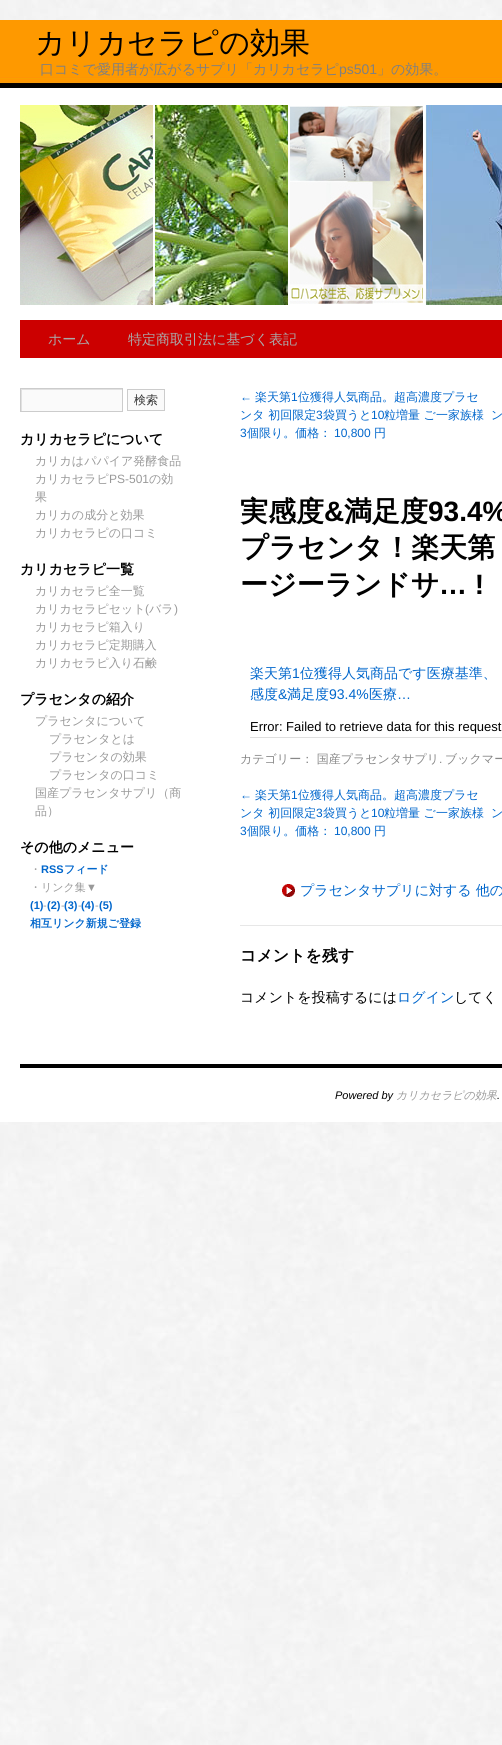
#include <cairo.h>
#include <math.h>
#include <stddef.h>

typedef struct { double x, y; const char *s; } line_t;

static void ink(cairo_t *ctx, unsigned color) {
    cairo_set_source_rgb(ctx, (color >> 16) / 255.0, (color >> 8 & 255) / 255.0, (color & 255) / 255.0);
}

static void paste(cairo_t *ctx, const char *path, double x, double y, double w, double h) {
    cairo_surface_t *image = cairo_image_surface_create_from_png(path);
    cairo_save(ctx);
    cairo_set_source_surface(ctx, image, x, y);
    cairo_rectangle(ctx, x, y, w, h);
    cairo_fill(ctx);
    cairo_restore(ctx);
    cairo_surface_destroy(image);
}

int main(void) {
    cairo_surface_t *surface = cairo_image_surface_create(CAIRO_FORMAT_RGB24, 502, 1745);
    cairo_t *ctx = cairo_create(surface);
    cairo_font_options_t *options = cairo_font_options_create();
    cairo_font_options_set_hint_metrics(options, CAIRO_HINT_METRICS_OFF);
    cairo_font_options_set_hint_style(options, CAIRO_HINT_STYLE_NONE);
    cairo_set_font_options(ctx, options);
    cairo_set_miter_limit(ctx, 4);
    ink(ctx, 0xFFFFFF);
    cairo_paint(ctx);
    paste(ctx, "media/1.png", 0, 0, 502, 1745);
    ink(ctx, 0xFFFFFF);
    cairo_rectangle(ctx, 0, 88, 502, 1034);
    cairo_fill(ctx);
    paste(ctx, "media/2.png", 0, 20, 502, 68);
    cairo_select_font_face(ctx, "WenQuanYi Zen Hei Medium", CAIRO_FONT_SLANT_NORMAL, CAIRO_FONT_WEIGHT_NORMAL);
    cairo_set_font_size(ctx, 30);
    ink(ctx, 0x000000);
    cairo_move_to(ctx, 35, 53);
    cairo_show_text(ctx, "カリカセラピの効果");
    cairo_set_font_size(ctx, 14);
    ink(ctx, 0x808080);
    cairo_move_to(ctx, 40, 74);
    cairo_show_text(ctx, "口コミで愛用者が広がるサプリ「カリカセラピ");
    cairo_select_font_face(ctx, "Liberation Sans", CAIRO_FONT_SLANT_NORMAL, CAIRO_FONT_WEIGHT_NORMAL);
    cairo_move_to(ctx, 339, 74);
    cairo_show_text(ctx, "ps501");
    cairo_select_font_face(ctx, "WenQuanYi Zen Hei Medium", CAIRO_FONT_SLANT_NORMAL, CAIRO_FONT_WEIGHT_NORMAL);
    cairo_move_to(ctx, 377, 74);
    cairo_show_text(ctx, "」の効果。");
    paste(ctx, "media/3.png", 20, 105, 133, 200);
    paste(ctx, "media/4.png", 155, 105, 133, 200);
    paste(ctx, "media/5.png", 290, 105, 133, 199);
    paste(ctx, "media/6.png", 425, 105, 77, 200);
    ink(ctx, 0xCC0000);
    cairo_rectangle(ctx, 20, 320, 482, 38);
    cairo_fill(ctx);
    ink(ctx, 0xAAAAAA);
    cairo_move_to(ctx, 48, 344);
    cairo_show_text(ctx, "ホーム");
    cairo_move_to(ctx, 128, 344);
    cairo_show_text(ctx, "特定商取引法に基づく表記");
    ink(ctx, 0xFAFAFA);
    cairo_rectangle(ctx, 22, 390, 100, 21);
    cairo_fill(ctx);
    cairo_save(ctx);
    cairo_rectangle(ctx, 21, 389, 101, 22);
    cairo_clip(ctx);
    ink(ctx, 0xE1E1E1);
    cairo_set_fill_rule(ctx, CAIRO_FILL_RULE_EVEN_ODD);
    cairo_new_path(ctx);
    cairo_move_to(ctx, -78, 290);
    cairo_line_to(ctx, 221, 290);
    cairo_line_to(ctx, 221, 510);
    cairo_line_to(ctx, -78, 510);
    cairo_close_path(ctx);
    cairo_move_to(ctx, 22, 390);
    cairo_line_to(ctx, 123, 390);
    cairo_line_to(ctx, 123, 412);
    cairo_line_to(ctx, 22, 412);
    cairo_close_path(ctx);
    cairo_fill(ctx);
    cairo_restore(ctx);
    cairo_rectangle(ctx, 20.5, 388.5, 102, 23);
    ink(ctx, 0xCCCCCC);
    cairo_set_line_width(ctx, 1);
    cairo_stroke(ctx);
    ink(ctx, 0xFAFAFA);
    cairo_rectangle(ctx, 127.5, 389.5, 37, 21);
    cairo_fill_preserve(ctx);
    ink(ctx, 0xCCCCCC);
    cairo_stroke(ctx);
    cairo_set_font_size(ctx, 12);
    ink(ctx, 0x333333);
    cairo_move_to(ctx, 134, 404);
    cairo_show_text(ctx, "検索");
    cairo_select_font_face(ctx, "WenQuanYi Zen Hei", CAIRO_FONT_SLANT_NORMAL, CAIRO_FONT_WEIGHT_BOLD);
    cairo_set_font_size(ctx, 14);
    ink(ctx, 0x000000);
    cairo_move_to(ctx, 20, 444);
    cairo_show_text(ctx, "カリカセラピについて");
    cairo_select_font_face(ctx, "WenQuanYi Zen Hei Medium", CAIRO_FONT_SLANT_NORMAL, CAIRO_FONT_WEIGHT_NORMAL);
    cairo_set_font_size(ctx, 12);
    ink(ctx, 0x999999);
    cairo_move_to(ctx, 35, 465);
    cairo_show_text(ctx, "カリカはパパイア発酵食品");
    cairo_move_to(ctx, 35, 483);
    cairo_show_text(ctx, "カリカセラピ");
    cairo_select_font_face(ctx, "Liberation Sans", CAIRO_FONT_SLANT_NORMAL, CAIRO_FONT_WEIGHT_NORMAL);
    cairo_move_to(ctx, 109, 483);
    cairo_show_text(ctx, "PS-501");
    cairo_select_font_face(ctx, "WenQuanYi Zen Hei Medium", CAIRO_FONT_SLANT_NORMAL, CAIRO_FONT_WEIGHT_NORMAL);
    {
        static const line_t items[] = {
            {149, 483, "の効"},
            {35, 501, "果"},
            {35, 519, "カリカの成分と効果"},
            {35, 537, "カリカセラピの口コミ"},
        };
        for (size_t i = 0; i < sizeof items / sizeof *items; i++) {
            cairo_move_to(ctx, items[i].x, items[i].y);
            cairo_show_text(ctx, items[i].s);
        }
    }
    cairo_select_font_face(ctx, "WenQuanYi Zen Hei", CAIRO_FONT_SLANT_NORMAL, CAIRO_FONT_WEIGHT_BOLD);
    cairo_set_font_size(ctx, 14);
    ink(ctx, 0x000000);
    cairo_move_to(ctx, 20, 574);
    cairo_show_text(ctx, "カリカセラピ一覧");
    cairo_select_font_face(ctx, "WenQuanYi Zen Hei Medium", CAIRO_FONT_SLANT_NORMAL, CAIRO_FONT_WEIGHT_NORMAL);
    cairo_set_font_size(ctx, 12);
    ink(ctx, 0x999999);
    cairo_move_to(ctx, 35, 595);
    cairo_show_text(ctx, "カリカセラピ全一覧");
    cairo_move_to(ctx, 35, 613);
    cairo_show_text(ctx, "カリカセラピセット");
    cairo_select_font_face(ctx, "Liberation Sans", CAIRO_FONT_SLANT_NORMAL, CAIRO_FONT_WEIGHT_NORMAL);
    cairo_move_to(ctx, 145, 613);
    cairo_show_text(ctx, "(");
    cairo_select_font_face(ctx, "WenQuanYi Zen Hei Medium", CAIRO_FONT_SLANT_NORMAL, CAIRO_FONT_WEIGHT_NORMAL);
    cairo_move_to(ctx, 149, 613);
    cairo_show_text(ctx, "バラ");
    cairo_select_font_face(ctx, "Liberation Sans", CAIRO_FONT_SLANT_NORMAL, CAIRO_FONT_WEIGHT_NORMAL);
    cairo_move_to(ctx, 174, 613);
    cairo_show_text(ctx, ")");
    cairo_select_font_face(ctx, "WenQuanYi Zen Hei Medium", CAIRO_FONT_SLANT_NORMAL, CAIRO_FONT_WEIGHT_NORMAL);
    {
        static const line_t items[] = {
            {35, 631, "カリカセラピ箱入り"},
            {35, 649, "カリカセラピ定期購入"},
            {35, 667, "カリカセラピ入り石鹸"},
        };
        for (size_t i = 0; i < sizeof items / sizeof *items; i++) {
            cairo_move_to(ctx, items[i].x, items[i].y);
            cairo_show_text(ctx, items[i].s);
        }
    }
    cairo_select_font_face(ctx, "WenQuanYi Zen Hei", CAIRO_FONT_SLANT_NORMAL, CAIRO_FONT_WEIGHT_BOLD);
    cairo_set_font_size(ctx, 14);
    ink(ctx, 0x000000);
    cairo_move_to(ctx, 20, 704);
    cairo_show_text(ctx, "プラセンタの紹介");
    cairo_select_font_face(ctx, "WenQuanYi Zen Hei Medium", CAIRO_FONT_SLANT_NORMAL, CAIRO_FONT_WEIGHT_NORMAL);
    cairo_set_font_size(ctx, 12);
    ink(ctx, 0x999999);
    {
        static const line_t items[] = {
            {35, 725, "プラセンタについて"},
            {49, 743, "プラセンタとは"},
            {49, 761, "プラセンタの効果"},
            {49, 779, "プラセンタの口コミ"},
            {35, 797, "国産プラセンタサプリ（商"},
            {35, 815, "品）"},
        };
        for (size_t i = 0; i < sizeof items / sizeof *items; i++) {
            cairo_move_to(ctx, items[i].x, items[i].y);
            cairo_show_text(ctx, items[i].s);
        }
    }
    cairo_select_font_face(ctx, "WenQuanYi Zen Hei", CAIRO_FONT_SLANT_NORMAL, CAIRO_FONT_WEIGHT_BOLD);
    cairo_set_font_size(ctx, 14);
    ink(ctx, 0x000000);
    cairo_move_to(ctx, 20, 852);
    cairo_show_text(ctx, "その他のメニュー");
    cairo_select_font_face(ctx, "WenQuanYi Zen Hei Medium", CAIRO_FONT_SLANT_NORMAL, CAIRO_FONT_WEIGHT_NORMAL);
    cairo_set_font_size(ctx, 11);
    ink(ctx, 0x999999);
    cairo_move_to(ctx, 30, 873);
    cairo_show_text(ctx, "・");
    cairo_select_font_face(ctx, "Liberation Sans", CAIRO_FONT_SLANT_NORMAL, CAIRO_FONT_WEIGHT_BOLD);
    ink(ctx, 0x0066CC);
    cairo_move_to(ctx, 41, 873);
    cairo_show_text(ctx, "RSS");
    cairo_select_font_face(ctx, "WenQuanYi Zen Hei", CAIRO_FONT_SLANT_NORMAL, CAIRO_FONT_WEIGHT_BOLD);
    cairo_move_to(ctx, 64, 873);
    cairo_show_text(ctx, "フィード");
    cairo_select_font_face(ctx, "WenQuanYi Zen Hei Medium", CAIRO_FONT_SLANT_NORMAL, CAIRO_FONT_WEIGHT_NORMAL);
    ink(ctx, 0x999999);
    cairo_move_to(ctx, 30, 891);
    cairo_show_text(ctx, "・リンク集");
    cairo_select_font_face(ctx, "Liberation Sans", CAIRO_FONT_SLANT_NORMAL, CAIRO_FONT_WEIGHT_NORMAL);
    cairo_move_to(ctx, 86, 891);
    cairo_show_text(ctx, "▼");
    cairo_select_font_face(ctx, "Liberation Sans", CAIRO_FONT_SLANT_NORMAL, CAIRO_FONT_WEIGHT_BOLD);
    ink(ctx, 0x0066CC);
    cairo_move_to(ctx, 30, 909);
    cairo_show_text(ctx, "(1)");
    cairo_select_font_face(ctx, "Liberation Sans", CAIRO_FONT_SLANT_NORMAL, CAIRO_FONT_WEIGHT_NORMAL);
    ink(ctx, 0x999999);
    cairo_move_to(ctx, 43, 909);
    cairo_show_text(ctx, "-");
    cairo_select_font_face(ctx, "Liberation Sans", CAIRO_FONT_SLANT_NORMAL, CAIRO_FONT_WEIGHT_BOLD);
    ink(ctx, 0x0066CC);
    cairo_move_to(ctx, 47, 909);
    cairo_show_text(ctx, "(2)");
    cairo_select_font_face(ctx, "Liberation Sans", CAIRO_FONT_SLANT_NORMAL, CAIRO_FONT_WEIGHT_NORMAL);
    ink(ctx, 0x999999);
    cairo_move_to(ctx, 61, 909);
    cairo_show_text(ctx, "-");
    cairo_select_font_face(ctx, "Liberation Sans", CAIRO_FONT_SLANT_NORMAL, CAIRO_FONT_WEIGHT_BOLD);
    ink(ctx, 0x0066CC);
    cairo_move_to(ctx, 64, 909);
    cairo_show_text(ctx, "(3)");
    cairo_select_font_face(ctx, "Liberation Sans", CAIRO_FONT_SLANT_NORMAL, CAIRO_FONT_WEIGHT_NORMAL);
    ink(ctx, 0x999999);
    cairo_move_to(ctx, 78, 909);
    cairo_show_text(ctx, "-");
    cairo_select_font_face(ctx, "Liberation Sans", CAIRO_FONT_SLANT_NORMAL, CAIRO_FONT_WEIGHT_BOLD);
    ink(ctx, 0x0066CC);
    cairo_move_to(ctx, 81, 909);
    cairo_show_text(ctx, "(4)");
    cairo_select_font_face(ctx, "Liberation Sans", CAIRO_FONT_SLANT_NORMAL, CAIRO_FONT_WEIGHT_NORMAL);
    ink(ctx, 0x999999);
    cairo_move_to(ctx, 95, 909);
    cairo_show_text(ctx, "-");
    cairo_select_font_face(ctx, "Liberation Sans", CAIRO_FONT_SLANT_NORMAL, CAIRO_FONT_WEIGHT_BOLD);
    ink(ctx, 0x0066CC);
    cairo_move_to(ctx, 99, 909);
    cairo_show_text(ctx, "(5)");
    cairo_select_font_face(ctx, "WenQuanYi Zen Hei", CAIRO_FONT_SLANT_NORMAL, CAIRO_FONT_WEIGHT_BOLD);
    cairo_move_to(ctx, 30, 927);
    cairo_show_text(ctx, "相互リンク新規ご登録");
    cairo_select_font_face(ctx, "Liberation Sans", CAIRO_FONT_SLANT_NORMAL, CAIRO_FONT_WEIGHT_NORMAL);
    cairo_set_font_size(ctx, 12);
    cairo_move_to(ctx, 240, 401);
    cairo_show_text(ctx, "←");
    cairo_select_font_face(ctx, "WenQuanYi Zen Hei Medium", CAIRO_FONT_SLANT_NORMAL, CAIRO_FONT_WEIGHT_NORMAL);
    cairo_move_to(ctx, 255, 401);
    cairo_show_text(ctx, "楽天第");
    cairo_select_font_face(ctx, "Liberation Sans", CAIRO_FONT_SLANT_NORMAL, CAIRO_FONT_WEIGHT_NORMAL);
    cairo_move_to(ctx, 291, 401);
    cairo_show_text(ctx, "1");
    cairo_select_font_face(ctx, "WenQuanYi Zen Hei Medium", CAIRO_FONT_SLANT_NORMAL, CAIRO_FONT_WEIGHT_NORMAL);
    cairo_move_to(ctx, 298, 401);
    cairo_show_text(ctx, "位獲得人気商品。超高濃度プラセ");
    cairo_move_to(ctx, 240, 419);
    cairo_show_text(ctx, "ンタ 初回限定");
    cairo_select_font_face(ctx, "Liberation Sans", CAIRO_FONT_SLANT_NORMAL, CAIRO_FONT_WEIGHT_NORMAL);
    cairo_move_to(ctx, 316, 419);
    cairo_show_text(ctx, "3");
    cairo_select_font_face(ctx, "WenQuanYi Zen Hei Medium", CAIRO_FONT_SLANT_NORMAL, CAIRO_FONT_WEIGHT_NORMAL);
    cairo_move_to(ctx, 323, 419);
    cairo_show_text(ctx, "袋買うと");
    cairo_select_font_face(ctx, "Liberation Sans", CAIRO_FONT_SLANT_NORMAL, CAIRO_FONT_WEIGHT_NORMAL);
    cairo_move_to(ctx, 371, 419);
    cairo_show_text(ctx, "10");
    cairo_select_font_face(ctx, "WenQuanYi Zen Hei Medium", CAIRO_FONT_SLANT_NORMAL, CAIRO_FONT_WEIGHT_NORMAL);
    cairo_move_to(ctx, 384, 419);
    cairo_show_text(ctx, "粒増量 ご一家族様");
    cairo_select_font_face(ctx, "Liberation Sans", CAIRO_FONT_SLANT_NORMAL, CAIRO_FONT_WEIGHT_NORMAL);
    cairo_move_to(ctx, 240, 437);
    cairo_show_text(ctx, "3");
    cairo_select_font_face(ctx, "WenQuanYi Zen Hei Medium", CAIRO_FONT_SLANT_NORMAL, CAIRO_FONT_WEIGHT_NORMAL);
    cairo_move_to(ctx, 247, 437);
    cairo_show_text(ctx, "個限り。価格：");
    cairo_select_font_face(ctx, "Liberation Sans", CAIRO_FONT_SLANT_NORMAL, CAIRO_FONT_WEIGHT_NORMAL);
    cairo_move_to(ctx, 334, 437);
    cairo_show_text(ctx, "10,800");
    cairo_select_font_face(ctx, "WenQuanYi Zen Hei Medium", CAIRO_FONT_SLANT_NORMAL, CAIRO_FONT_WEIGHT_NORMAL);
    cairo_move_to(ctx, 374, 437);
    cairo_show_text(ctx, "円");
    cairo_move_to(ctx, 491, 419);
    cairo_show_text(ctx, "ン");
    cairo_select_font_face(ctx, "WenQuanYi Zen Hei", CAIRO_FONT_SLANT_NORMAL, CAIRO_FONT_WEIGHT_BOLD);
    cairo_set_font_size(ctx, 28);
    ink(ctx, 0x000000);
    cairo_move_to(ctx, 240, 521);
    cairo_show_text(ctx, "実感度");
    cairo_select_font_face(ctx, "Liberation Sans", CAIRO_FONT_SLANT_NORMAL, CAIRO_FONT_WEIGHT_BOLD);
    cairo_move_to(ctx, 324, 521);
    cairo_show_text(ctx, "&");
    cairo_select_font_face(ctx, "WenQuanYi Zen Hei", CAIRO_FONT_SLANT_NORMAL, CAIRO_FONT_WEIGHT_BOLD);
    cairo_move_to(ctx, 344, 521);
    cairo_show_text(ctx, "満足度");
    cairo_select_font_face(ctx, "Liberation Sans", CAIRO_FONT_SLANT_NORMAL, CAIRO_FONT_WEIGHT_BOLD);
    cairo_move_to(ctx, 428, 521);
    cairo_show_text(ctx, "93.4%");
    cairo_select_font_face(ctx, "WenQuanYi Zen Hei", CAIRO_FONT_SLANT_NORMAL, CAIRO_FONT_WEIGHT_BOLD);
    cairo_move_to(ctx, 240, 557);
    cairo_show_text(ctx, "プラセンタ！楽天第");
    cairo_move_to(ctx, 240, 594);
    cairo_show_text(ctx, "ージーランドサ");
    cairo_select_font_face(ctx, "Liberation Sans", CAIRO_FONT_SLANT_NORMAL, CAIRO_FONT_WEIGHT_BOLD);
    cairo_move_to(ctx, 439, 594);
    cairo_show_text(ctx, "… !");
    cairo_select_font_face(ctx, "WenQuanYi Zen Hei Medium", CAIRO_FONT_SLANT_NORMAL, CAIRO_FONT_WEIGHT_NORMAL);
    cairo_set_font_size(ctx, 14);
    ink(ctx, 0x0066CC);
    cairo_move_to(ctx, 250, 678);
    cairo_show_text(ctx, "楽天第");
    cairo_select_font_face(ctx, "Liberation Sans", CAIRO_FONT_SLANT_NORMAL, CAIRO_FONT_WEIGHT_NORMAL);
    cairo_move_to(ctx, 292, 678);
    cairo_show_text(ctx, "1");
    cairo_select_font_face(ctx, "WenQuanYi Zen Hei Medium", CAIRO_FONT_SLANT_NORMAL, CAIRO_FONT_WEIGHT_NORMAL);
    cairo_move_to(ctx, 300, 678);
    cairo_show_text(ctx, "位獲得人気商品です医療基準、");
    cairo_move_to(ctx, 250, 699);
    cairo_show_text(ctx, "感度");
    cairo_select_font_face(ctx, "Liberation Sans", CAIRO_FONT_SLANT_NORMAL, CAIRO_FONT_WEIGHT_NORMAL);
    cairo_move_to(ctx, 278, 699);
    cairo_show_text(ctx, "&");
    cairo_select_font_face(ctx, "WenQuanYi Zen Hei Medium", CAIRO_FONT_SLANT_NORMAL, CAIRO_FONT_WEIGHT_NORMAL);
    cairo_move_to(ctx, 287, 699);
    cairo_show_text(ctx, "満足度");
    cairo_select_font_face(ctx, "Liberation Sans", CAIRO_FONT_SLANT_NORMAL, CAIRO_FONT_WEIGHT_NORMAL);
    cairo_move_to(ctx, 329, 699);
    cairo_show_text(ctx, "93.4%");
    cairo_select_font_face(ctx, "WenQuanYi Zen Hei Medium", CAIRO_FONT_SLANT_NORMAL, CAIRO_FONT_WEIGHT_NORMAL);
    cairo_move_to(ctx, 369, 699);
    cairo_show_text(ctx, "医療");
    cairo_select_font_face(ctx, "Liberation Sans", CAIRO_FONT_SLANT_NORMAL, CAIRO_FONT_WEIGHT_NORMAL);
    cairo_move_to(ctx, 397, 699);
    cairo_show_text(ctx, "…");
    ink(ctx, 0xDFDFDF);
    cairo_rectangle(ctx, 250, 737, 252, 1);
    cairo_fill(ctx);
    cairo_set_font_size(ctx, 13);
    ink(ctx, 0x000000);
    cairo_move_to(ctx, 250, 731);
    cairo_show_text(ctx, "Error: Failed to retrieve data for this request");
    cairo_select_font_face(ctx, "WenQuanYi Zen Hei Medium", CAIRO_FONT_SLANT_NORMAL, CAIRO_FONT_WEIGHT_NORMAL);
    cairo_set_font_size(ctx, 12);
    ink(ctx, 0x888888);
    cairo_move_to(ctx, 240, 763);
    cairo_show_text(ctx, "カテゴリー： 国産プラセンタサプリ");
    cairo_select_font_face(ctx, "Liberation Sans", CAIRO_FONT_SLANT_NORMAL, CAIRO_FONT_WEIGHT_NORMAL);
    cairo_move_to(ctx, 439, 763);
    cairo_show_text(ctx, ".");
    cairo_select_font_face(ctx, "WenQuanYi Zen Hei Medium", CAIRO_FONT_SLANT_NORMAL, CAIRO_FONT_WEIGHT_NORMAL);
    cairo_move_to(ctx, 445, 763);
    cairo_show_text(ctx, "ブックマー");
    cairo_select_font_face(ctx, "Liberation Sans", CAIRO_FONT_SLANT_NORMAL, CAIRO_FONT_WEIGHT_NORMAL);
    ink(ctx, 0x0066CC);
    cairo_move_to(ctx, 240, 799);
    cairo_show_text(ctx, "←");
    cairo_select_font_face(ctx, "WenQuanYi Zen Hei Medium", CAIRO_FONT_SLANT_NORMAL, CAIRO_FONT_WEIGHT_NORMAL);
    cairo_move_to(ctx, 255, 799);
    cairo_show_text(ctx, "楽天第");
    cairo_select_font_face(ctx, "Liberation Sans", CAIRO_FONT_SLANT_NORMAL, CAIRO_FONT_WEIGHT_NORMAL);
    cairo_move_to(ctx, 291, 799);
    cairo_show_text(ctx, "1");
    cairo_select_font_face(ctx, "WenQuanYi Zen Hei Medium", CAIRO_FONT_SLANT_NORMAL, CAIRO_FONT_WEIGHT_NORMAL);
    cairo_move_to(ctx, 298, 799);
    cairo_show_text(ctx, "位獲得人気商品。超高濃度プラセ");
    cairo_move_to(ctx, 240, 817);
    cairo_show_text(ctx, "ンタ 初回限定");
    cairo_select_font_face(ctx, "Liberation Sans", CAIRO_FONT_SLANT_NORMAL, CAIRO_FONT_WEIGHT_NORMAL);
    cairo_move_to(ctx, 316, 817);
    cairo_show_text(ctx, "3");
    cairo_select_font_face(ctx, "WenQuanYi Zen Hei Medium", CAIRO_FONT_SLANT_NORMAL, CAIRO_FONT_WEIGHT_NORMAL);
    cairo_move_to(ctx, 323, 817);
    cairo_show_text(ctx, "袋買うと");
    cairo_select_font_face(ctx, "Liberation Sans", CAIRO_FONT_SLANT_NORMAL, CAIRO_FONT_WEIGHT_NORMAL);
    cairo_move_to(ctx, 371, 817);
    cairo_show_text(ctx, "10");
    cairo_select_font_face(ctx, "WenQuanYi Zen Hei Medium", CAIRO_FONT_SLANT_NORMAL, CAIRO_FONT_WEIGHT_NORMAL);
    cairo_move_to(ctx, 384, 817);
    cairo_show_text(ctx, "粒増量 ご一家族様");
    cairo_select_font_face(ctx, "Liberation Sans", CAIRO_FONT_SLANT_NORMAL, CAIRO_FONT_WEIGHT_NORMAL);
    cairo_move_to(ctx, 240, 835);
    cairo_show_text(ctx, "3");
    cairo_select_font_face(ctx, "WenQuanYi Zen Hei Medium", CAIRO_FONT_SLANT_NORMAL, CAIRO_FONT_WEIGHT_NORMAL);
    cairo_move_to(ctx, 247, 835);
    cairo_show_text(ctx, "個限り。価格：");
    cairo_select_font_face(ctx, "Liberation Sans", CAIRO_FONT_SLANT_NORMAL, CAIRO_FONT_WEIGHT_NORMAL);
    cairo_move_to(ctx, 334, 835);
    cairo_show_text(ctx, "10,800");
    cairo_select_font_face(ctx, "WenQuanYi Zen Hei Medium", CAIRO_FONT_SLANT_NORMAL, CAIRO_FONT_WEIGHT_NORMAL);
    cairo_move_to(ctx, 374, 835);
    cairo_show_text(ctx, "円");
    cairo_move_to(ctx, 491, 817);
    cairo_show_text(ctx, "ン");
    paste(ctx, "media/7.png", 282, 884, 13, 13);
    cairo_set_font_size(ctx, 14);
    cairo_move_to(ctx, 300, 895);
    cairo_show_text(ctx, "プラセンタサプリに対する 他の");
    ink(ctx, 0xE7E7E7);
    cairo_rectangle(ctx, 240, 925, 262, 1);
    cairo_fill(ctx);
    cairo_select_font_face(ctx, "WenQuanYi Zen Hei", CAIRO_FONT_SLANT_NORMAL, CAIRO_FONT_WEIGHT_BOLD);
    cairo_set_font_size(ctx, 16);
    ink(ctx, 0x000000);
    cairo_move_to(ctx, 240, 961);
    cairo_show_text(ctx, "コメントを残す");
    cairo_select_font_face(ctx, "WenQuanYi Zen Hei Medium", CAIRO_FONT_SLANT_NORMAL, CAIRO_FONT_WEIGHT_NORMAL);
    cairo_set_font_size(ctx, 14);
    cairo_move_to(ctx, 240, 1002);
    cairo_show_text(ctx, "コメントを投稿するには");
    ink(ctx, 0x0066CC);
    cairo_move_to(ctx, 397, 1002);
    cairo_show_text(ctx, "ログイン");
    ink(ctx, 0x000000);
    cairo_move_to(ctx, 454, 1002);
    cairo_show_text(ctx, "してく");
    cairo_rectangle(ctx, 20, 1064, 482, 4);
    cairo_fill(ctx);
    cairo_select_font_face(ctx, "Liberation Sans", CAIRO_FONT_SLANT_ITALIC, CAIRO_FONT_WEIGHT_NORMAL);
    cairo_set_font_size(ctx, 11);
    cairo_move_to(ctx, 335, 1099);
    cairo_show_text(ctx, "Powered by");
    cairo_select_font_face(ctx, "WenQuanYi Zen Hei Medium", CAIRO_FONT_SLANT_ITALIC, CAIRO_FONT_WEIGHT_NORMAL);
    ink(ctx, 0x999999);
    cairo_move_to(ctx, 396, 1099);
    cairo_show_text(ctx, "カリカセラピの効果");
    cairo_select_font_face(ctx, "Liberation Sans", CAIRO_FONT_SLANT_ITALIC, CAIRO_FONT_WEIGHT_NORMAL);
    ink(ctx, 0x000000);
    cairo_move_to(ctx, 497, 1099);
    cairo_show_text(ctx, ".");
    cairo_surface_write_to_png(surface, "image.png");
    cairo_font_options_destroy(options);
    cairo_destroy(ctx);
    cairo_surface_destroy(surface);
    return 0;
}
